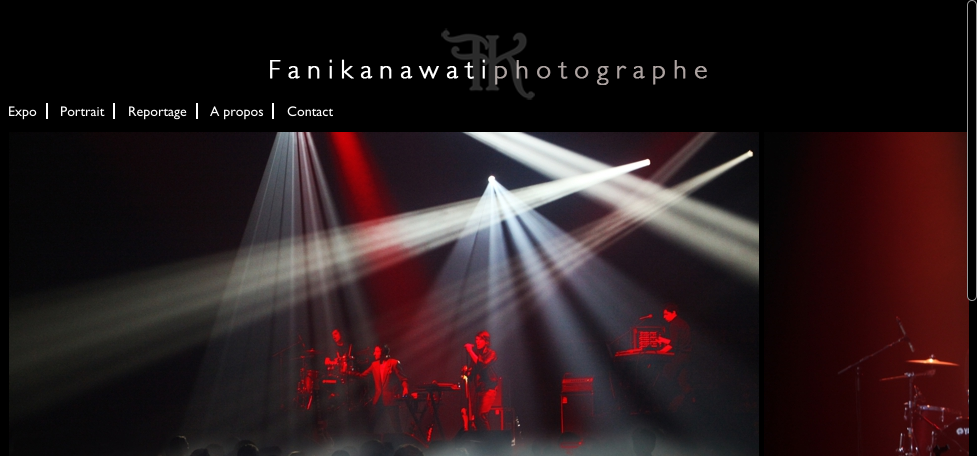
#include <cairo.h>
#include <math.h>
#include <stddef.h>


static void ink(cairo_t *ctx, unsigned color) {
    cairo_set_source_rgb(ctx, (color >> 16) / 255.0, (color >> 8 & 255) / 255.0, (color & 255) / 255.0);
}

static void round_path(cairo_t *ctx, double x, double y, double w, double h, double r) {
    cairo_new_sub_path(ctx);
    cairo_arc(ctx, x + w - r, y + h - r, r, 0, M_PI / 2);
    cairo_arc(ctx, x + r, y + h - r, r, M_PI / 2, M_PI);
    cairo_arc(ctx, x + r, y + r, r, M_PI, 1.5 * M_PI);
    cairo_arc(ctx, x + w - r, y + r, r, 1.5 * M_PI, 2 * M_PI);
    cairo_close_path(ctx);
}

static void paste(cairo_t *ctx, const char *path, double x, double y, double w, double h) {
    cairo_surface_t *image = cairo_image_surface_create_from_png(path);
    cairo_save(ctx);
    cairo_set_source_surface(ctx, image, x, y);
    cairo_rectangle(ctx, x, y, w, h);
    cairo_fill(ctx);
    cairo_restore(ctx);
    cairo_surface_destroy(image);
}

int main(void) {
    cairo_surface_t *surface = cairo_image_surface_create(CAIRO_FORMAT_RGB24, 977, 456);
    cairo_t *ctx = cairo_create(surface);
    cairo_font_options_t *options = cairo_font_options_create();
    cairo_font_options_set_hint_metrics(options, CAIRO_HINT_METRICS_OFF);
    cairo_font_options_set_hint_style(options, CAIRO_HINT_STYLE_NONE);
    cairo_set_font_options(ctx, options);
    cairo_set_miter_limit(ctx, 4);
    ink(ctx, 0x000000);
    cairo_paint(ctx);
    paste(ctx, "media/1.png", 270, 28, 437, 72);
    cairo_select_font_face(ctx, "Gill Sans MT", CAIRO_FONT_SLANT_NORMAL, CAIRO_FONT_WEIGHT_NORMAL);
    cairo_set_font_size(ctx, 14);
    ink(ctx, 0xFFFFFF);
    cairo_move_to(ctx, 8, 116);
    cairo_show_text(ctx, "Expo");
    cairo_rectangle(ctx, 46, 103, 2, 16);
    cairo_fill(ctx);
    cairo_move_to(ctx, 60, 116);
    cairo_show_text(ctx, "Portrait");
    cairo_rectangle(ctx, 113, 103, 2, 16);
    cairo_fill(ctx);
    cairo_move_to(ctx, 128, 116);
    cairo_show_text(ctx, "Reportage");
    cairo_rectangle(ctx, 196, 103, 2, 16);
    cairo_fill(ctx);
    cairo_move_to(ctx, 210, 116);
    cairo_show_text(ctx, "A propos");
    cairo_rectangle(ctx, 272, 103, 2, 16);
    cairo_fill(ctx);
    cairo_move_to(ctx, 287, 116);
    cairo_show_text(ctx, "Contact");
    paste(ctx, "media/2.png", 9, 132, 750, 324);
    paste(ctx, "media/3.png", 764, 132, 205, 324);
    ink(ctx, 0x000000);
    round_path(ctx, 967.5, 0.5, 9, 300, 4.5);
    cairo_fill_preserve(ctx);
    ink(ctx, 0x999999);
    cairo_set_line_width(ctx, 1);
    cairo_stroke(ctx);
    cairo_surface_write_to_png(surface, "image.png");
    cairo_font_options_destroy(options);
    cairo_destroy(ctx);
    cairo_surface_destroy(surface);
    return 0;
}
